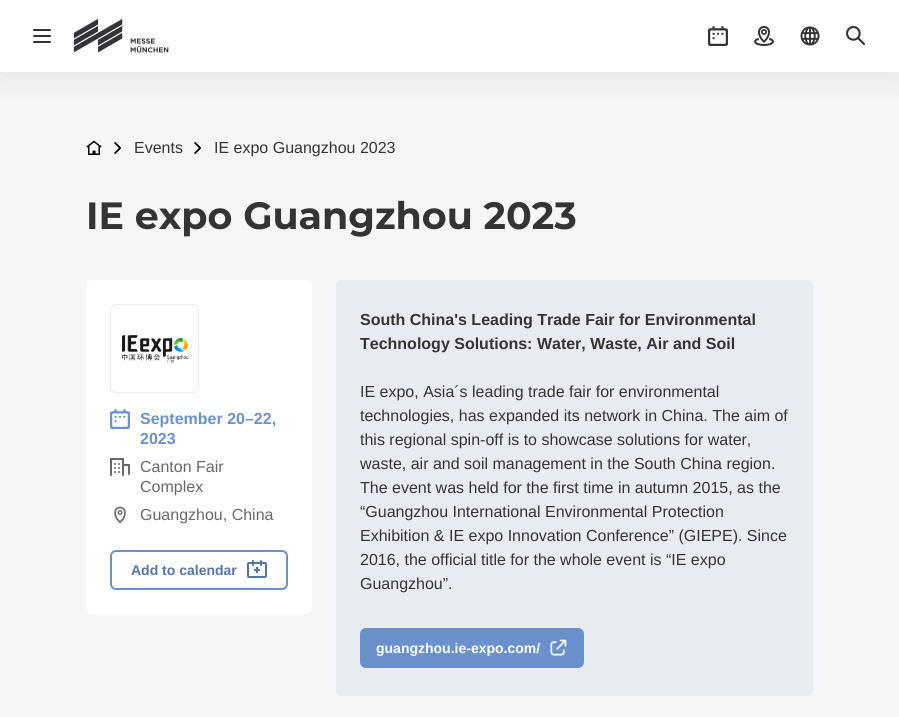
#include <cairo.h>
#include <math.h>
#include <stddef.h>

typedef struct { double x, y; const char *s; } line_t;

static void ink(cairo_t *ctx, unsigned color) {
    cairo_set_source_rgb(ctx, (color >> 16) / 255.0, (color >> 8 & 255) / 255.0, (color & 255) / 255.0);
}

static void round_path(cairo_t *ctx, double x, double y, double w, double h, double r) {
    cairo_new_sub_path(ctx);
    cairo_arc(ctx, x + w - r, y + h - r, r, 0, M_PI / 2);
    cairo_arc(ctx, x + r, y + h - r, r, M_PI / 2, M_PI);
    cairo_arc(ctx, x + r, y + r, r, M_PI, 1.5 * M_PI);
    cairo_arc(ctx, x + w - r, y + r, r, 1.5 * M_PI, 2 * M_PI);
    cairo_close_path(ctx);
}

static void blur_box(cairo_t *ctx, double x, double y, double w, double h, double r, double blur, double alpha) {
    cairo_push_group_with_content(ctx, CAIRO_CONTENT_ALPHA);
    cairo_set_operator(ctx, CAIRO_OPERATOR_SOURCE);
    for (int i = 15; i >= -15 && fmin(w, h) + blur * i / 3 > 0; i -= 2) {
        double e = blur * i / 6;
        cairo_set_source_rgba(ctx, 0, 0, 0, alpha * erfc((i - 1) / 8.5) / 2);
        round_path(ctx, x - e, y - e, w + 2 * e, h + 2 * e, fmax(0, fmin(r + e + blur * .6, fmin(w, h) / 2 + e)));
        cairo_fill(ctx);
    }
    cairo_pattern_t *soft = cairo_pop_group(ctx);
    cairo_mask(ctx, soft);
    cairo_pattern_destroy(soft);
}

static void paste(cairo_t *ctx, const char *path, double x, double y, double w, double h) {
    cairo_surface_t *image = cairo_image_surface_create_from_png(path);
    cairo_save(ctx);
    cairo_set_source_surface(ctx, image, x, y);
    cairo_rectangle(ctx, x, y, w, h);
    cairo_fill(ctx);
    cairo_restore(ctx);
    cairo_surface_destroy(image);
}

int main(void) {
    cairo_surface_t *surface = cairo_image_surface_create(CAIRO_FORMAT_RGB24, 899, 717);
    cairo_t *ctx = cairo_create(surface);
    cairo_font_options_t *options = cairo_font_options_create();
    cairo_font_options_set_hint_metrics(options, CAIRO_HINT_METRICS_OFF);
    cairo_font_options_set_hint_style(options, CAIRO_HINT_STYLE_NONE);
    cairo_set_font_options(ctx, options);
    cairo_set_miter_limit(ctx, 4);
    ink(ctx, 0xF5F6F8);
    cairo_paint(ctx);
    ink(ctx, 0x000000);
    blur_box(ctx, 0, 4, 899, 72, 0, 20, 0.08);
    ink(ctx, 0xFFFFFF);
    cairo_rectangle(ctx, 0, 0, 899, 72);
    cairo_fill(ctx);
    paste(ctx, "media/1.png", 33, 29, 18, 14);
    paste(ctx, "media/2.png", 73, 19, 96, 34);
    paste(ctx, "media/3.png", 708, 26, 20, 20);
    paste(ctx, "media/4.png", 754, 26, 20, 20);
    paste(ctx, "media/5.png", 800, 26, 20, 20);
    paste(ctx, "media/6.png", 846, 26, 19, 19);
    paste(ctx, "media/7.png", 86, 140, 16, 15);
    paste(ctx, "media/8.png", 114, 142, 7, 12);
    cairo_select_font_face(ctx, "Liberation Sans", CAIRO_FONT_SLANT_NORMAL, CAIRO_FONT_WEIGHT_NORMAL);
    cairo_set_font_size(ctx, 16);
    ink(ctx, 0x343434);
    cairo_move_to(ctx, 134, 153);
    cairo_show_text(ctx, "Events");
    paste(ctx, "media/8.png", 194, 142, 7, 12);
    cairo_move_to(ctx, 214, 153);
    cairo_show_text(ctx, "IE expo Guangzhou 2023");
    cairo_select_font_face(ctx, "Montserrat Thin", CAIRO_FONT_SLANT_NORMAL, CAIRO_FONT_WEIGHT_NORMAL);
    cairo_set_font_size(ctx, 38);
    cairo_move_to(ctx, 86, 229);
    cairo_show_text(ctx, "IE expo Guangzhou 2023");
    ink(ctx, 0xFFFFFF);
    round_path(ctx, 86, 280, 226, 334, 6);
    cairo_fill(ctx);
    round_path(ctx, 110.5, 304.5, 88, 88, 5.5);
    ink(ctx, 0xE8EBF1);
    cairo_set_line_width(ctx, 1);
    cairo_stroke(ctx);
    paste(ctx, "media/9.png", 122, 335, 67, 28);
    paste(ctx, "media/10.png", 110, 409, 20, 20);
    cairo_select_font_face(ctx, "Liberation Sans", CAIRO_FONT_SLANT_NORMAL, CAIRO_FONT_WEIGHT_BOLD);
    cairo_set_font_size(ctx, 16);
    ink(ctx, 0x6A91CE);
    cairo_move_to(ctx, 140, 424);
    cairo_show_text(ctx, "September 20–22,");
    cairo_move_to(ctx, 140, 444);
    cairo_show_text(ctx, "2023");
    paste(ctx, "media/11.png", 110, 458, 20, 18);
    cairo_select_font_face(ctx, "Liberation Sans", CAIRO_FONT_SLANT_NORMAL, CAIRO_FONT_WEIGHT_NORMAL);
    ink(ctx, 0x676869);
    cairo_move_to(ctx, 140, 472);
    cairo_show_text(ctx, "Canton Fair");
    cairo_move_to(ctx, 140, 492);
    cairo_show_text(ctx, "Complex");
    paste(ctx, "media/12.png", 114, 506, 12, 18);
    cairo_move_to(ctx, 140, 520);
    cairo_show_text(ctx, "Guangzhou, China");
    round_path(ctx, 111, 551, 176, 38, 5);
    ink(ctx, 0x6A91CE);
    cairo_set_line_width(ctx, 2);
    cairo_stroke(ctx);
    cairo_select_font_face(ctx, "Liberation Sans", CAIRO_FONT_SLANT_NORMAL, CAIRO_FONT_WEIGHT_BOLD);
    cairo_set_font_size(ctx, 14);
    ink(ctx, 0x5574A5);
    cairo_move_to(ctx, 131, 575);
    cairo_show_text(ctx, "Add to calendar");
    paste(ctx, "media/13.png", 247, 560, 20, 18);
    ink(ctx, 0xE8EBF1);
    round_path(ctx, 336, 280, 477, 416, 6);
    cairo_fill(ctx);
    cairo_set_font_size(ctx, 16);
    ink(ctx, 0x343434);
    cairo_move_to(ctx, 360, 325);
    cairo_show_text(ctx, "South China's Leading Trade Fair for Environmental");
    cairo_move_to(ctx, 360, 349);
    cairo_show_text(ctx, "Technology Solutions: Water, Waste, Air and Soil");
    cairo_select_font_face(ctx, "Liberation Sans", CAIRO_FONT_SLANT_NORMAL, CAIRO_FONT_WEIGHT_NORMAL);
    {
        static const line_t items[] = {
            {360, 397, "IE expo, Asia´s leading trade fair for environmental"},
            {360, 421, "technologies, has expanded its network in China. The aim of"},
            {360, 445, "this regional spin-off is to showcase solutions for water,"},
            {360, 469, "waste, air and soil management in the South China region."},
            {360, 493, "The event was held for the first time in autumn 2015, as the"},
            {360, 517, "“Guangzhou International Environmental Protection"},
            {360, 541, "Exhibition & IE expo Innovation Conference” (GIEPE). Since"},
            {360, 565, "2016, the official title for the whole event is “IE expo"},
            {360, 589, "Guangzhou”."},
        };
        for (size_t i = 0; i < sizeof items / sizeof *items; i++) {
            cairo_move_to(ctx, items[i].x, items[i].y);
            cairo_show_text(ctx, items[i].s);
        }
    }
    ink(ctx, 0x6A91CE);
    round_path(ctx, 360, 628, 224, 40, 6);
    cairo_fill(ctx);
    cairo_select_font_face(ctx, "Liberation Sans", CAIRO_FONT_SLANT_NORMAL, CAIRO_FONT_WEIGHT_BOLD);
    cairo_set_font_size(ctx, 14);
    ink(ctx, 0xFFFFFF);
    cairo_move_to(ctx, 376, 653);
    cairo_show_text(ctx, "guangzhou.ie-expo.com/");
    paste(ctx, "media/14.png", 550, 639, 17, 17);
    cairo_surface_write_to_png(surface, "image.png");
    cairo_font_options_destroy(options);
    cairo_destroy(ctx);
    cairo_surface_destroy(surface);
    return 0;
}
